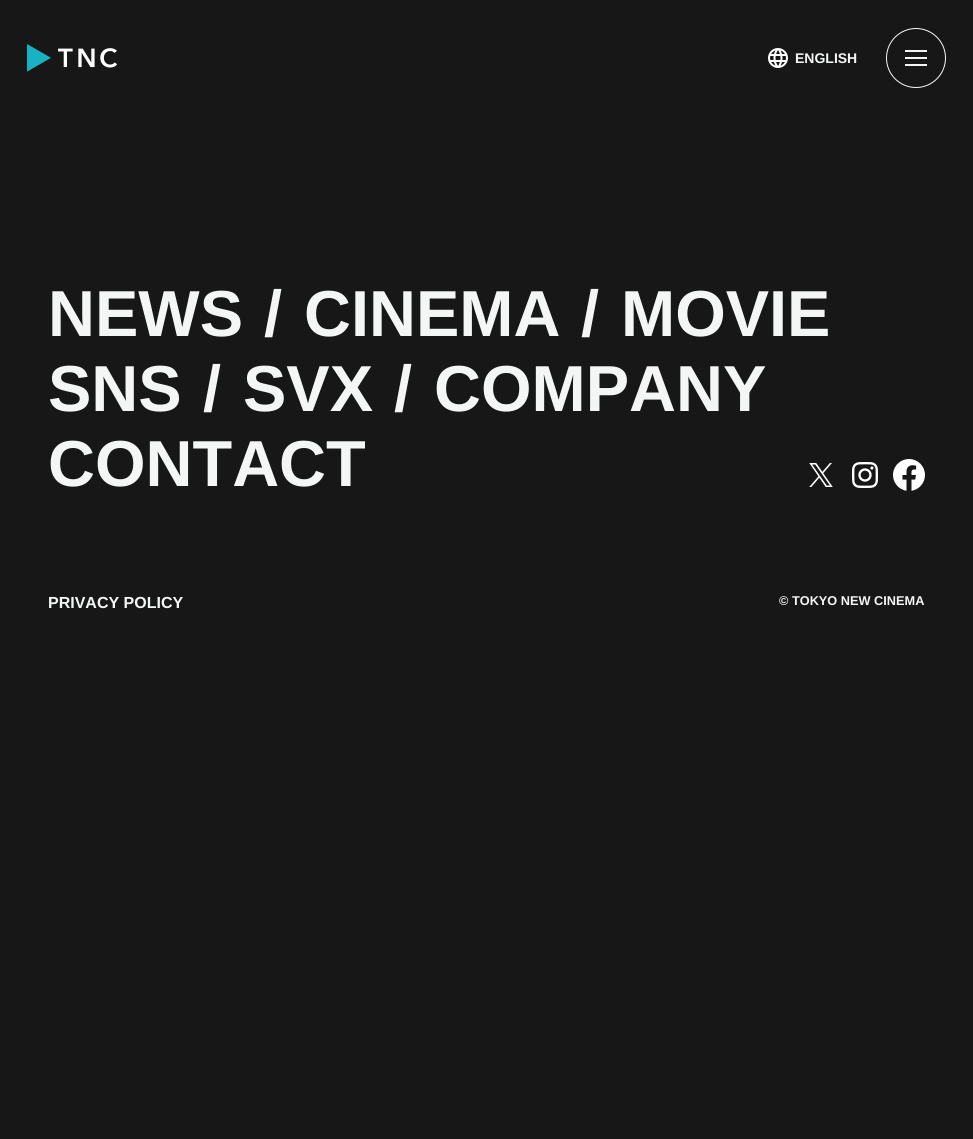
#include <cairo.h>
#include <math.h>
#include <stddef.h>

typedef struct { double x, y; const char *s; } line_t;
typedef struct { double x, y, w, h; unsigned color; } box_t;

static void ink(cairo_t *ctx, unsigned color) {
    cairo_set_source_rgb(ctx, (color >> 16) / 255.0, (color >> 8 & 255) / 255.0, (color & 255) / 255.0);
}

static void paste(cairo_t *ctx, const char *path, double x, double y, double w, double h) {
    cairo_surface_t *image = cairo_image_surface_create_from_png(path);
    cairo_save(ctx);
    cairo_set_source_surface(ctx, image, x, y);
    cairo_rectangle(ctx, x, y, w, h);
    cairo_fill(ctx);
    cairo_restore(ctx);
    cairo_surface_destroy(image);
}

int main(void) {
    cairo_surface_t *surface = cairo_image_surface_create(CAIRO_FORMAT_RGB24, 973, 1139);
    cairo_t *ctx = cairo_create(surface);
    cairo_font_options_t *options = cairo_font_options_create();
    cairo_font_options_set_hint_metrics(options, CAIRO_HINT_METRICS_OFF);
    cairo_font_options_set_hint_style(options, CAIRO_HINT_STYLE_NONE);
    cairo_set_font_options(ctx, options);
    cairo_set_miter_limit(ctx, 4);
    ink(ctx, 0x171717);
    cairo_paint(ctx);
    paste(ctx, "media/1.png", 27, 44, 90, 28);
    paste(ctx, "media/2.png", 768, 48, 20, 20);
    cairo_select_font_face(ctx, "Liberation Sans", CAIRO_FONT_SLANT_NORMAL, CAIRO_FONT_WEIGHT_BOLD);
    cairo_set_font_size(ctx, 14);
    ink(ctx, 0xF4F6F6);
    cairo_move_to(ctx, 795, 63);
    cairo_show_text(ctx, "ENGLISH");
    cairo_new_path(ctx);
    cairo_arc(ctx, 916, 58, 29.5, 0, 2 * M_PI);
    cairo_set_line_width(ctx, 1);
    cairo_stroke(ctx);
    {
        static const box_t items[] = {
            {905, 50, 22, 2, 0xF4F6F6},
            {905, 57, 22, 2, 0xF4F6F6},
            {905, 64, 22, 2, 0xF4F6F6},
        };
        for (size_t i = 0; i < sizeof items / sizeof *items; i++) {
            ink(ctx, items[i].color);
            cairo_rectangle(ctx, items[i].x, items[i].y, items[i].w, items[i].h);
            cairo_fill(ctx);
        }
    }
    cairo_set_font_size(ctx, 65);
    {
        static const line_t items[] = {
            {48, 336, "NEWS"},
            {264, 336, "/"},
            {304, 336, "CINEMA"},
            {581, 336, "/"},
            {621, 336, "MOVIE"},
            {48, 411, "SNS"},
            {203, 411, "/"},
            {243, 411, "SVX"},
            {394, 411, "/"},
            {434, 411, "COMPANY"},
            {48, 486, "CONTACT"},
        };
        for (size_t i = 0; i < sizeof items / sizeof *items; i++) {
            cairo_move_to(ctx, items[i].x, items[i].y);
            cairo_show_text(ctx, items[i].s);
        }
    }
    paste(ctx, "media/3.png", 809, 463, 24, 24);
    paste(ctx, "media/4.png", 852, 462, 26, 26);
    paste(ctx, "media/5.png", 893, 459, 32, 32);
    cairo_set_font_size(ctx, 16);
    cairo_move_to(ctx, 48, 608);
    cairo_show_text(ctx, "PRIVACY POLICY");
    cairo_set_font_size(ctx, 12.75);
    cairo_move_to(ctx, 779, 605);
    cairo_show_text(ctx, "© TOKYO NEW CINEMA");
    cairo_surface_write_to_png(surface, "image.png");
    cairo_font_options_destroy(options);
    cairo_destroy(ctx);
    cairo_surface_destroy(surface);
    return 0;
}
